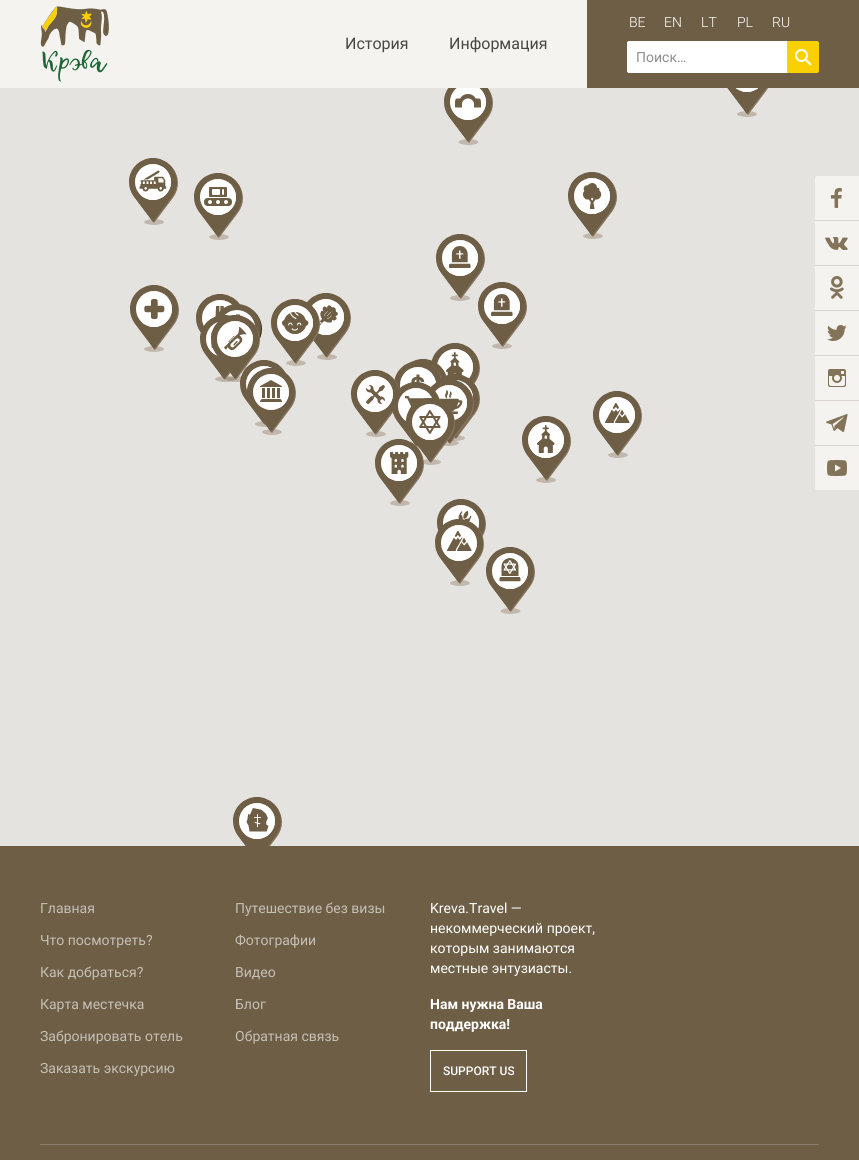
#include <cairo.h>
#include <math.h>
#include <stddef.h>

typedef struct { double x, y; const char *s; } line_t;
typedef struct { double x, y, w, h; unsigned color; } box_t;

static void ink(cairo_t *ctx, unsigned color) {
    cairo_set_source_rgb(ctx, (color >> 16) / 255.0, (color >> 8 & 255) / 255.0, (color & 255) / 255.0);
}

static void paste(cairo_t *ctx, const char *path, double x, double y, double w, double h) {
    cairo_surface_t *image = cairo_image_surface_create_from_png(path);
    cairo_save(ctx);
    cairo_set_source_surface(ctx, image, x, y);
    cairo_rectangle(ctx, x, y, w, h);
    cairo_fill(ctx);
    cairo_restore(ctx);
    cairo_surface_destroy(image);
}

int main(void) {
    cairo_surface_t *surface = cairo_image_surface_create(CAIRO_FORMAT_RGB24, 859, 1160);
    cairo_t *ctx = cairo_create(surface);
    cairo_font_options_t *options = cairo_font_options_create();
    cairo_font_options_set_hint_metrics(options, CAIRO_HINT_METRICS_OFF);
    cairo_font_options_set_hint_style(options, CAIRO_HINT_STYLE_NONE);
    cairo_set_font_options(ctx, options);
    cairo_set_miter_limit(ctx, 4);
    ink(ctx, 0x6E5E45);
    cairo_paint(ctx);
    ink(ctx, 0xF5F3F0);
    cairo_rectangle(ctx, 0, 0, 587, 88);
    cairo_fill(ctx);
    paste(ctx, "media/1.png", 40, 6, 69, 41);
    paste(ctx, "media/2.png", 42, 49, 66, 33);
    cairo_select_font_face(ctx, "Roboto", CAIRO_FONT_SLANT_NORMAL, CAIRO_FONT_WEIGHT_NORMAL);
    cairo_set_font_size(ctx, 16);
    ink(ctx, 0x4A4642);
    cairo_move_to(ctx, 345, 49);
    cairo_show_text(ctx, "История");
    cairo_move_to(ctx, 449, 49);
    cairo_show_text(ctx, "Информация");
    cairo_select_font_face(ctx, "Roboto Light", CAIRO_FONT_SLANT_NORMAL, CAIRO_FONT_WEIGHT_NORMAL);
    cairo_set_font_size(ctx, 14);
    ink(ctx, 0xFFFFFF);
    {
        static const line_t items[] = {
            {629, 27, "BE"},
            {664, 27, "EN"},
            {701, 27, "LT"},
            {737, 27, "PL"},
            {772, 27, "RU"},
        };
        for (size_t i = 0; i < sizeof items / sizeof *items; i++) {
            cairo_move_to(ctx, items[i].x, items[i].y);
            cairo_show_text(ctx, items[i].s);
        }
    }
    cairo_new_path(ctx);
    cairo_move_to(ctx, 629, 41);
    cairo_line_to(ctx, 787, 41);
    cairo_line_to(ctx, 787, 73);
    cairo_line_to(ctx, 629, 73);
    cairo_curve_to(ctx, 628, 73, 627, 72, 627, 71);
    cairo_line_to(ctx, 627, 43);
    cairo_curve_to(ctx, 627, 42, 628, 41, 629, 41);
    cairo_close_path(ctx);
    cairo_fill(ctx);
    {
        static const box_t items[] = {
            {628, 41, 1, 1, 0xFFFFFF},
            {628, 72, 1, 1, 0xFFFFFF},
            {627, 42, 1, 30, 0xFFFFFF},
        };
        for (size_t i = 0; i < sizeof items / sizeof *items; i++) {
            ink(ctx, items[i].color);
            cairo_rectangle(ctx, items[i].x, items[i].y, items[i].w, items[i].h);
            cairo_fill(ctx);
        }
    }
    cairo_select_font_face(ctx, "Roboto", CAIRO_FONT_SLANT_NORMAL, CAIRO_FONT_WEIGHT_NORMAL);
    ink(ctx, 0x8D8D8D);
    cairo_move_to(ctx, 636, 62);
    cairo_show_text(ctx, "Поиск…");
    ink(ctx, 0xFAD000);
    cairo_new_path(ctx);
    cairo_move_to(ctx, 787, 41);
    cairo_line_to(ctx, 817, 41);
    cairo_curve_to(ctx, 818, 41, 819, 42, 819, 43);
    cairo_line_to(ctx, 819, 71);
    cairo_curve_to(ctx, 819, 72, 818, 73, 817, 73);
    cairo_line_to(ctx, 787, 73);
    cairo_close_path(ctx);
    cairo_fill(ctx);
    cairo_arc(ctx, 801.5, 55.5, 5.5, 0, 2 * M_PI);
    ink(ctx, 0xFFFFFF);
    cairo_stroke(ctx);
    cairo_new_path(ctx);
    cairo_move_to(ctx, 811, 65);
    cairo_line_to(ctx, 806, 60);
    cairo_stroke(ctx);
    ink(ctx, 0xE5E3DF);
    cairo_rectangle(ctx, 0, 88, 859, 758);
    cairo_fill(ctx);
    paste(ctx, "media/3.png", 444, 88, 49, 57);
    paste(ctx, "media/4.png", 727, 88, 41, 29);
    paste(ctx, "media/5.png", 129, 158, 49, 67);
    paste(ctx, "media/6.png", 194, 173, 49, 67);
    paste(ctx, "media/7.png", 568, 172, 49, 67);
    paste(ctx, "media/8.png", 436, 234, 49, 67);
    paste(ctx, "media/9.png", 130, 285, 49, 67);
    paste(ctx, "media/10.png", 196, 294, 48, 63);
    paste(ctx, "media/12.png", 303, 293, 48, 67);
    paste(ctx, "media/11.png", 271, 299, 49, 67);
    paste(ctx, "media/8.png", 478, 282, 49, 67);
    paste(ctx, "media/13.png", 215, 304, 47, 67);
    paste(ctx, "media/14.png", 200, 315, 45, 67);
    paste(ctx, "media/15.png", 211, 315, 49, 67);
    paste(ctx, "media/16.png", 240, 360, 49, 67);
    paste(ctx, "media/18.png", 431, 343, 49, 47);
    paste(ctx, "media/17.png", 408, 359, 39, 25);
    paste(ctx, "media/19.png", 247, 368, 49, 67);
    paste(ctx, "media/21.png", 394, 361, 48, 32);
    paste(ctx, "media/20.png", 351, 370, 49, 67);
    paste(ctx, "media/22.png", 435, 374, 45, 67);
    paste(ctx, "media/24.png", 427, 380, 47, 66);
    paste(ctx, "media/23.png", 392, 382, 49, 67);
    paste(ctx, "media/25.png", 593, 391, 49, 67);
    paste(ctx, "media/27.png", 406, 398, 49, 67);
    paste(ctx, "media/26.png", 375, 439, 49, 67);
    paste(ctx, "media/28.png", 522, 416, 49, 67);
    paste(ctx, "media/29.png", 437, 499, 49, 62);
    paste(ctx, "media/30.png", 435, 519, 49, 67);
    paste(ctx, "media/31.png", 486, 547, 49, 67);
    paste(ctx, "media/32.png", 233, 797, 49, 49);
    ink(ctx, 0xF5F3F0);
    cairo_new_path(ctx);
    cairo_move_to(ctx, 817, 176);
    cairo_line_to(ctx, 859, 176);
    cairo_line_to(ctx, 859, 221);
    cairo_line_to(ctx, 815, 221);
    cairo_line_to(ctx, 815, 178);
    cairo_curve_to(ctx, 815, 177, 816, 176, 817, 176);
    cairo_close_path(ctx);
    cairo_fill(ctx);
    ink(ctx, 0xDAD5CE);
    cairo_rectangle(ctx, 815, 220, 44, 1);
    cairo_fill(ctx);
    paste(ctx, "media/33.png", 831, 188, 11, 20);
    ink(ctx, 0xF5F3F0);
    cairo_rectangle(ctx, 815, 221, 44, 44);
    cairo_fill(ctx);
    ink(ctx, 0xDAD5CE);
    cairo_rectangle(ctx, 815, 265, 44, 1);
    cairo_fill(ctx);
    paste(ctx, "media/34.png", 825, 237, 23, 13);
    ink(ctx, 0xF5F3F0);
    cairo_rectangle(ctx, 815, 266, 44, 44);
    cairo_fill(ctx);
    ink(ctx, 0xDAD5CE);
    cairo_rectangle(ctx, 815, 310, 44, 1);
    cairo_fill(ctx);
    paste(ctx, "media/35.png", 830, 276, 14, 23);
    ink(ctx, 0xF5F3F0);
    cairo_rectangle(ctx, 815, 311, 44, 44);
    cairo_fill(ctx);
    ink(ctx, 0xDAD5CE);
    cairo_rectangle(ctx, 815, 355, 44, 1);
    cairo_fill(ctx);
    paste(ctx, "media/36.png", 827, 325, 20, 16);
    ink(ctx, 0xF5F3F0);
    cairo_rectangle(ctx, 815, 356, 44, 44);
    cairo_fill(ctx);
    ink(ctx, 0xDAD5CE);
    cairo_rectangle(ctx, 815, 400, 44, 1);
    cairo_fill(ctx);
    paste(ctx, "media/37.png", 828, 369, 18, 18);
    ink(ctx, 0xF5F3F0);
    cairo_rectangle(ctx, 815, 401, 44, 44);
    cairo_fill(ctx);
    ink(ctx, 0xDAD5CE);
    cairo_rectangle(ctx, 815, 445, 44, 1);
    cairo_fill(ctx);
    paste(ctx, "media/38.png", 826, 414, 22, 18);
    ink(ctx, 0xF5F3F0);
    cairo_new_path(ctx);
    cairo_move_to(ctx, 815, 446);
    cairo_line_to(ctx, 859, 446);
    cairo_line_to(ctx, 859, 490);
    cairo_line_to(ctx, 817, 490);
    cairo_curve_to(ctx, 816, 490, 815, 489, 815, 488);
    cairo_close_path(ctx);
    cairo_fill(ctx);
    paste(ctx, "media/39.png", 827, 460, 20, 16);
    ink(ctx, 0xC5BFB5);
    {
        static const line_t items[] = {
            {40, 913, "Главная"},
            {40, 945, "Что посмотреть?"},
            {40, 977, "Как добраться?"},
            {40, 1009, "Карта местечка"},
            {40, 1041, "Забронировать отель"},
            {40, 1073, "Заказать экскурсию"},
            {235, 913, "Путешествие без визы"},
            {235, 945, "Фотографии"},
            {235, 977, "Видео"},
            {235, 1009, "Блог"},
            {235, 1041, "Обратная связь"},
        };
        for (size_t i = 0; i < sizeof items / sizeof *items; i++) {
            cairo_move_to(ctx, items[i].x, items[i].y);
            cairo_show_text(ctx, items[i].s);
        }
    }
    ink(ctx, 0xFFFFFF);
    {
        static const line_t items[] = {
            {430, 913, "Kreva.Travel —"},
            {430, 933, "некоммерческий проект,"},
            {430, 953, "которым занимаются"},
            {430, 973, "местные энтузиасты."},
        };
        for (size_t i = 0; i < sizeof items / sizeof *items; i++) {
            cairo_move_to(ctx, items[i].x, items[i].y);
            cairo_show_text(ctx, items[i].s);
        }
    }
    cairo_select_font_face(ctx, "Roboto", CAIRO_FONT_SLANT_NORMAL, CAIRO_FONT_WEIGHT_BOLD);
    cairo_move_to(ctx, 430, 1009);
    cairo_show_text(ctx, "Нам нужна Ваша");
    cairo_move_to(ctx, 430, 1029);
    cairo_show_text(ctx, "поддержка!");
    cairo_rectangle(ctx, 430.5, 1050.5, 96, 41);
    cairo_set_line_width(ctx, 1);
    cairo_stroke(ctx);
    cairo_select_font_face(ctx, "Roboto Medium", CAIRO_FONT_SLANT_NORMAL, CAIRO_FONT_WEIGHT_NORMAL);
    cairo_set_font_size(ctx, 12);
    cairo_move_to(ctx, 443, 1075);
    cairo_show_text(ctx, "SUPPORT US");
    ink(ctx, 0x8B7E6A);
    cairo_rectangle(ctx, 40, 1144, 779, 1);
    cairo_fill(ctx);
    cairo_surface_write_to_png(surface, "image.png");
    cairo_font_options_destroy(options);
    cairo_destroy(ctx);
    cairo_surface_destroy(surface);
    return 0;
}
